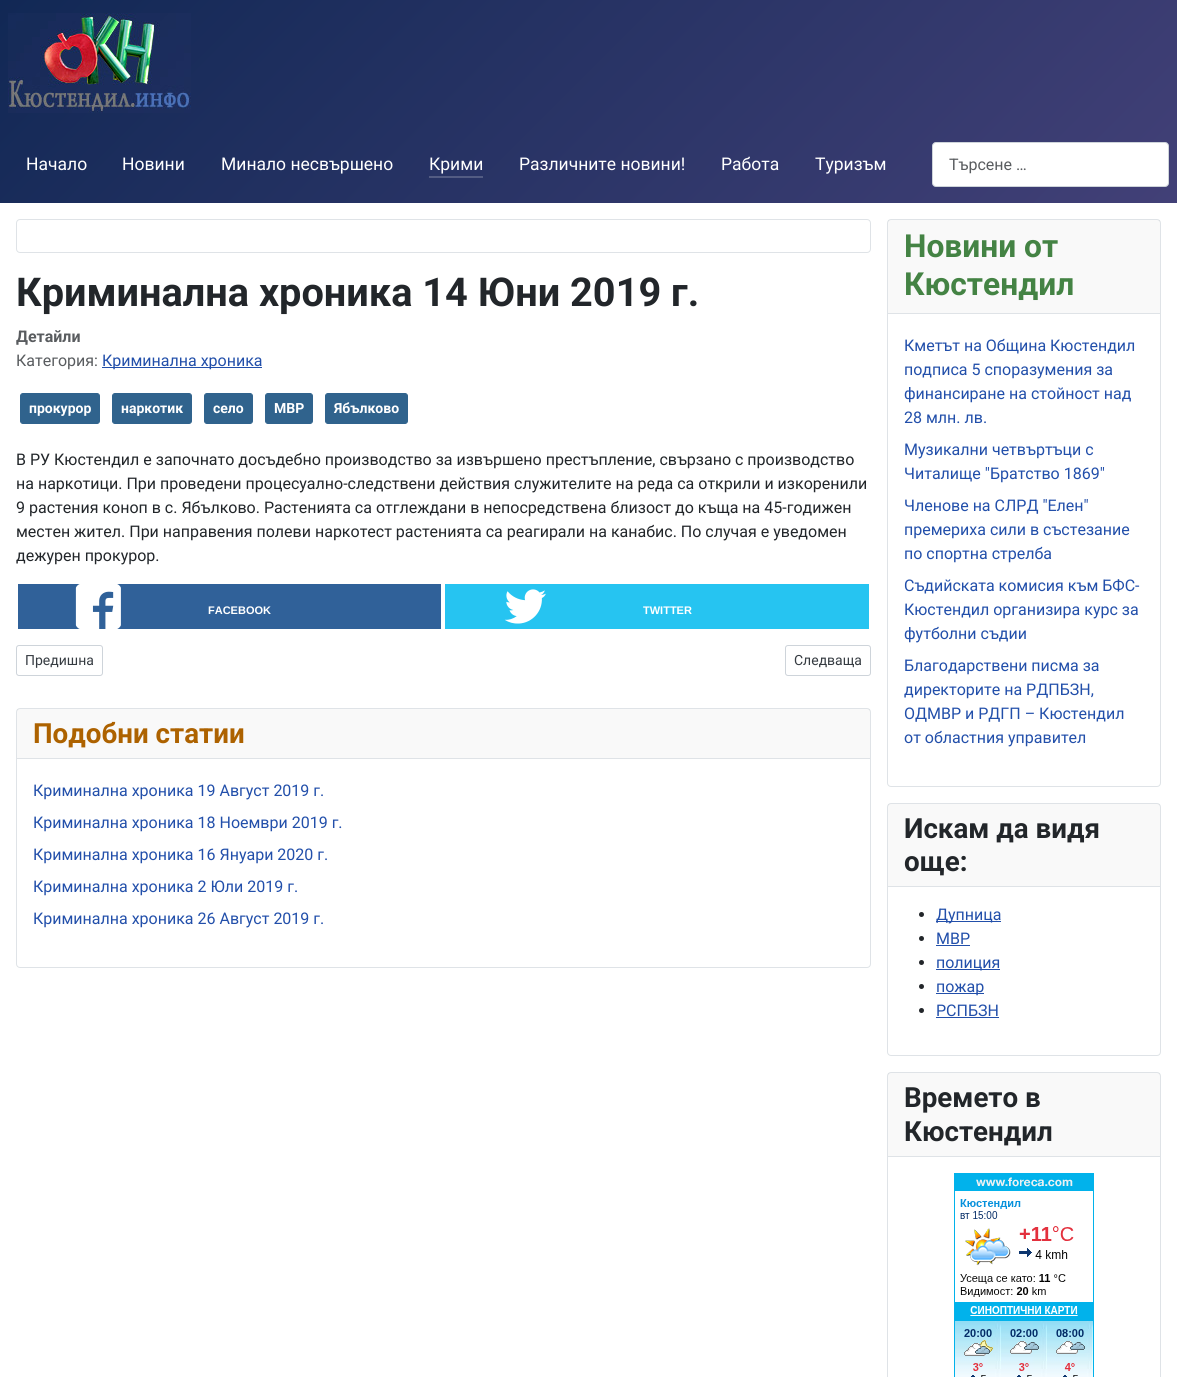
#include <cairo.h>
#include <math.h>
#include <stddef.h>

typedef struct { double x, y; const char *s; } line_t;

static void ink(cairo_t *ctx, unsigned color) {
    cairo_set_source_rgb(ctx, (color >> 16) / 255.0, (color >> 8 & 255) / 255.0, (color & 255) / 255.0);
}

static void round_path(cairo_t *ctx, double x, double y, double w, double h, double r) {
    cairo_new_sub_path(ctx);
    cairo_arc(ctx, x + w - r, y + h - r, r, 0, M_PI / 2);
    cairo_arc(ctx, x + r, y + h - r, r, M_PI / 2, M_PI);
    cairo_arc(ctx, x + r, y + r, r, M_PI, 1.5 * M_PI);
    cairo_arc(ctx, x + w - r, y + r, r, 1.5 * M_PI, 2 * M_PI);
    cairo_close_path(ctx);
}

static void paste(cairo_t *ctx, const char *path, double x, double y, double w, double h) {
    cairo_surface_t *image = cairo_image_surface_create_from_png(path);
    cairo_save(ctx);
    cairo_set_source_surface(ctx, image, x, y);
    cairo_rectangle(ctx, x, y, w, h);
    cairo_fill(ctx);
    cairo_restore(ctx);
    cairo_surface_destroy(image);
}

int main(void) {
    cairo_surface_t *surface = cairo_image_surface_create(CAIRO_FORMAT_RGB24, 1177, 1377);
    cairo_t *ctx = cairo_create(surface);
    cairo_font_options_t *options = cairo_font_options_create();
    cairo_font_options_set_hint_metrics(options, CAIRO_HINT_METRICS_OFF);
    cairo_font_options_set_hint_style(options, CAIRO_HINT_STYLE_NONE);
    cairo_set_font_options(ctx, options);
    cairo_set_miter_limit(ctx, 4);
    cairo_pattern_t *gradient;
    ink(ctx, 0xFFFFFF);
    cairo_paint(ctx);
    gradient = cairo_pattern_create_linear(243, -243, 934, 447);
    cairo_pattern_add_color_stop_rgba(gradient, 0, 0.067, 0.157, 0.333, 1);
    cairo_pattern_add_color_stop_rgba(gradient, 1, 0.259, 0.251, 0.467, 1);
    cairo_set_source(ctx, gradient);
    cairo_pattern_destroy(gradient);
    cairo_rectangle(ctx, 0, 0, 1177, 203);
    cairo_fill(ctx);
    paste(ctx, "media/1.png", 8, 13, 183, 100);
    cairo_select_font_face(ctx, "Roboto", CAIRO_FONT_SLANT_NORMAL, CAIRO_FONT_WEIGHT_NORMAL);
    cairo_set_font_size(ctx, 17.5);
    ink(ctx, 0xFFFFFF);
    {
        static const line_t items[] = {
            {26, 170, "Начало"},
            {122, 170, "Новини"},
            {221, 170, "Минало несвършено"},
            {429, 170, "Крими"},
        };
        for (size_t i = 0; i < sizeof items / sizeof *items; i++) {
            cairo_move_to(ctx, items[i].x, items[i].y);
            cairo_show_text(ctx, items[i].s);
        }
    }
    ink(ctx, 0x535C83);
    cairo_rectangle(ctx, 429, 176, 54, 2);
    cairo_fill(ctx);
    ink(ctx, 0xFFFFFF);
    {
        static const line_t items[] = {
            {519, 170, "Различните новини!"},
            {721, 170, "Работа"},
            {815, 170, "Туризъм"},
        };
        for (size_t i = 0; i < sizeof items / sizeof *items; i++) {
            cairo_move_to(ctx, items[i].x, items[i].y);
            cairo_show_text(ctx, items[i].s);
        }
    }
    round_path(ctx, 932.5, 142.5, 236, 44, 3.5);
    cairo_fill_preserve(ctx);
    ink(ctx, 0xCED4DA);
    cairo_set_line_width(ctx, 1);
    cairo_stroke(ctx);
    cairo_set_font_size(ctx, 16);
    ink(ctx, 0x595C5F);
    cairo_move_to(ctx, 949, 170);
    cairo_show_text(ctx, "Търсене …");
    round_path(ctx, 16.5, 219.5, 854, 33, 3.5);
    ink(ctx, 0xDFE3E7);
    cairo_stroke(ctx);
    cairo_select_font_face(ctx, "Roboto", CAIRO_FONT_SLANT_NORMAL, CAIRO_FONT_WEIGHT_BOLD);
    cairo_set_font_size(ctx, 39.7);
    ink(ctx, 0x22262A);
    cairo_move_to(ctx, 16, 306);
    cairo_show_text(ctx, "Криминална хроника 14 Юни 2019 г.");
    cairo_set_font_size(ctx, 16);
    ink(ctx, 0x595C5F);
    cairo_move_to(ctx, 16, 342);
    cairo_show_text(ctx, "Детайли");
    cairo_select_font_face(ctx, "Roboto", CAIRO_FONT_SLANT_NORMAL, CAIRO_FONT_WEIGHT_NORMAL);
    cairo_move_to(ctx, 16, 366);
    cairo_show_text(ctx, "Категория:");
    ink(ctx, 0x224FAA);
    cairo_rectangle(ctx, 102, 367, 160, 1);
    cairo_fill(ctx);
    cairo_move_to(ctx, 102, 366);
    cairo_show_text(ctx, "Криминална хроника");
    ink(ctx, 0x30638D);
    round_path(ctx, 20.5, 393.5, 79, 30, 2.5);
    cairo_fill_preserve(ctx);
    cairo_stroke(ctx);
    cairo_select_font_face(ctx, "Roboto", CAIRO_FONT_SLANT_NORMAL, CAIRO_FONT_WEIGHT_BOLD);
    cairo_set_font_size(ctx, 14);
    ink(ctx, 0xFFFFFF);
    cairo_move_to(ctx, 29, 413);
    cairo_show_text(ctx, "прокурор");
    ink(ctx, 0x30638D);
    round_path(ctx, 112.5, 393.5, 79, 30, 2.5);
    cairo_fill_preserve(ctx);
    cairo_stroke(ctx);
    ink(ctx, 0xFFFFFF);
    cairo_move_to(ctx, 121, 413);
    cairo_show_text(ctx, "наркотик");
    ink(ctx, 0x30638D);
    round_path(ctx, 204.5, 393.5, 48, 30, 2.5);
    cairo_fill_preserve(ctx);
    cairo_stroke(ctx);
    ink(ctx, 0xFFFFFF);
    cairo_move_to(ctx, 213, 413);
    cairo_show_text(ctx, "село");
    ink(ctx, 0x30638D);
    round_path(ctx, 265.5, 393.5, 47, 30, 2.5);
    cairo_fill_preserve(ctx);
    cairo_stroke(ctx);
    ink(ctx, 0xFFFFFF);
    cairo_move_to(ctx, 274, 413);
    cairo_show_text(ctx, "МВР");
    ink(ctx, 0x30638D);
    round_path(ctx, 325.5, 393.5, 82, 30, 2.5);
    cairo_fill_preserve(ctx);
    cairo_stroke(ctx);
    ink(ctx, 0xFFFFFF);
    cairo_move_to(ctx, 334, 413);
    cairo_show_text(ctx, "Ябълково");
    cairo_select_font_face(ctx, "Roboto", CAIRO_FONT_SLANT_NORMAL, CAIRO_FONT_WEIGHT_NORMAL);
    cairo_set_font_size(ctx, 16);
    ink(ctx, 0x22262A);
    {
        static const line_t items[] = {
            {16, 465, "В РУ Кюстендил е започнато досъдебно производство за извършено престъпление, свързано с производство"},
            {16, 489, "на наркотици. При проведени процесуално-следствени действия служителите на реда са открили и изкоренили"},
            {16, 513, "9 растения коноп в с. Ябълково. Растенията са отглеждани в непосредствена близост до къща на 45-годижен"},
            {16, 537, "местен жител. При направения полеви наркотест растенията са реагирали на канабис. По случая е уведомен"},
            {16, 561, "дежурен прокурор."},
        };
        for (size_t i = 0; i < sizeof items / sizeof *items; i++) {
            cairo_move_to(ctx, items[i].x, items[i].y);
            cairo_show_text(ctx, items[i].s);
        }
    }
    ink(ctx, 0x306199);
    cairo_rectangle(ctx, 18, 584, 423, 45);
    cairo_fill(ctx);
    paste(ctx, "media/2.png", 75, 584, 46, 45);
    cairo_select_font_face(ctx, "Liberation Sans", CAIRO_FONT_SLANT_NORMAL, CAIRO_FONT_WEIGHT_BOLD);
    cairo_set_font_size(ctx, 11);
    ink(ctx, 0xFFFFFF);
    cairo_move_to(ctx, 208, 614);
    cairo_show_text(ctx, "FACEBOOK");
    ink(ctx, 0x26C4F1);
    cairo_rectangle(ctx, 445, 584, 424, 45);
    cairo_fill(ctx);
    paste(ctx, "media/3.png", 504, 589, 42, 35);
    ink(ctx, 0xFFFFFF);
    cairo_move_to(ctx, 643, 614);
    cairo_show_text(ctx, "TWITTER");
    round_path(ctx, 16.5, 645.5, 86, 30, 2.5);
    ink(ctx, 0xCED4DA);
    cairo_stroke(ctx);
    cairo_select_font_face(ctx, "Roboto", CAIRO_FONT_SLANT_NORMAL, CAIRO_FONT_WEIGHT_NORMAL);
    cairo_set_font_size(ctx, 14);
    ink(ctx, 0x353B41);
    cairo_move_to(ctx, 25, 665);
    cairo_show_text(ctx, "Предишна");
    round_path(ctx, 785.5, 645.5, 85, 30, 2.5);
    ink(ctx, 0xCED4DA);
    cairo_stroke(ctx);
    ink(ctx, 0x353B41);
    cairo_move_to(ctx, 794, 665);
    cairo_show_text(ctx, "Следваща");
    round_path(ctx, 16.5, 708.5, 854, 259, 3.5);
    ink(ctx, 0xDFE3E7);
    cairo_stroke(ctx);
    cairo_set_source_rgba(ctx, 0.133, 0.149, 0.165, 0.03);
    cairo_rectangle(ctx, 17, 709, 853, 49);
    cairo_fill(ctx);
    ink(ctx, 0xDFE3E7);
    cairo_rectangle(ctx, 17, 758, 853, 1);
    cairo_fill(ctx);
    cairo_select_font_face(ctx, "Roboto", CAIRO_FONT_SLANT_NORMAL, CAIRO_FONT_WEIGHT_BOLD);
    cairo_set_font_size(ctx, 27.75);
    ink(ctx, 0xAD6200);
    cairo_move_to(ctx, 33, 743);
    cairo_show_text(ctx, "Подобни статии");
    cairo_select_font_face(ctx, "Roboto", CAIRO_FONT_SLANT_NORMAL, CAIRO_FONT_WEIGHT_NORMAL);
    cairo_set_font_size(ctx, 16);
    ink(ctx, 0x224FAA);
    {
        static const line_t items[] = {
            {33, 796, "Криминална хроника 19 Август 2019 г."},
            {33, 828, "Криминална хроника 18 Ноември 2019 г."},
            {33, 860, "Криминална хроника 16 Януари 2020 г."},
            {33, 892, "Криминална хроника 2 Юли 2019 г."},
            {33, 924, "Криминална хроника 26 Август 2019 г."},
        };
        for (size_t i = 0; i < sizeof items / sizeof *items; i++) {
            cairo_move_to(ctx, items[i].x, items[i].y);
            cairo_show_text(ctx, items[i].s);
        }
    }
    round_path(ctx, 887.5, 219.5, 273, 567, 3.5);
    ink(ctx, 0xDFE3E7);
    cairo_stroke(ctx);
    cairo_set_source_rgba(ctx, 0.133, 0.149, 0.165, 0.03);
    cairo_rectangle(ctx, 888, 220, 272, 93);
    cairo_fill(ctx);
    ink(ctx, 0xDFE3E7);
    cairo_rectangle(ctx, 888, 313, 272, 1);
    cairo_fill(ctx);
    cairo_select_font_face(ctx, "Roboto", CAIRO_FONT_SLANT_NORMAL, CAIRO_FONT_WEIGHT_BOLD);
    cairo_set_font_size(ctx, 31.75);
    ink(ctx, 0x448344);
    cairo_move_to(ctx, 904, 257);
    cairo_show_text(ctx, "Новини от");
    cairo_move_to(ctx, 904, 295);
    cairo_show_text(ctx, "Кюстендил");
    cairo_select_font_face(ctx, "Roboto", CAIRO_FONT_SLANT_NORMAL, CAIRO_FONT_WEIGHT_NORMAL);
    cairo_set_font_size(ctx, 16);
    ink(ctx, 0x224FAA);
    {
        static const line_t items[] = {
            {904, 351, "Кметът на Община Кюстендил"},
            {904, 375, "подписа 5 споразумения за"},
            {904, 399, "финансиране на стойност над"},
            {904, 423, "28 млн. лв."},
            {904, 455, "Музикални четвъртъци с"},
            {904, 479, "Читалище \"Братство 1869\""},
            {904, 511, "Членове на СЛРД \"Елен\""},
            {904, 535, "премериха сили в състезание"},
            {904, 559, "по спортна стрелба"},
            {904, 591, "Съдийската комисия към БФС-"},
            {904, 615, "Кюстендил организира курс за"},
            {904, 639, "футболни съдии"},
            {904, 671, "Благодарствени писма за"},
            {904, 695, "директорите на РДПБЗН,"},
            {904, 719, "ОДМВР и РДГП – Кюстендил"},
            {904, 743, "от областния управител"},
        };
        for (size_t i = 0; i < sizeof items / sizeof *items; i++) {
            cairo_move_to(ctx, items[i].x, items[i].y);
            cairo_show_text(ctx, items[i].s);
        }
    }
    round_path(ctx, 887.5, 803.5, 273, 252, 3.5);
    ink(ctx, 0xDFE3E7);
    cairo_stroke(ctx);
    cairo_set_source_rgba(ctx, 0.133, 0.149, 0.165, 0.03);
    cairo_rectangle(ctx, 888, 804, 272, 82);
    cairo_fill(ctx);
    ink(ctx, 0xDFE3E7);
    cairo_rectangle(ctx, 888, 886, 272, 1);
    cairo_fill(ctx);
    cairo_select_font_face(ctx, "Roboto", CAIRO_FONT_SLANT_NORMAL, CAIRO_FONT_WEIGHT_BOLD);
    cairo_set_font_size(ctx, 27.75);
    ink(ctx, 0x22262A);
    cairo_move_to(ctx, 904, 838);
    cairo_show_text(ctx, "Искам да видя");
    cairo_move_to(ctx, 904, 871);
    cairo_show_text(ctx, "още:");
    cairo_new_path(ctx);
    cairo_arc(ctx, 921.5, 914.5, 2.5, 0, 2 * M_PI);
    cairo_fill(ctx);
    ink(ctx, 0x224FAA);
    cairo_rectangle(ctx, 936, 921, 65, 1);
    cairo_fill(ctx);
    cairo_select_font_face(ctx, "Roboto", CAIRO_FONT_SLANT_NORMAL, CAIRO_FONT_WEIGHT_NORMAL);
    cairo_set_font_size(ctx, 16);
    cairo_move_to(ctx, 936, 920);
    cairo_show_text(ctx, "Дупница");
    ink(ctx, 0x22262A);
    cairo_new_path(ctx);
    cairo_arc(ctx, 921.5, 938.5, 2.5, 0, 2 * M_PI);
    cairo_fill(ctx);
    ink(ctx, 0x224FAA);
    cairo_move_to(ctx, 936, 944);
    cairo_show_text(ctx, "МВР");
    cairo_rectangle(ctx, 936, 945, 34, 1);
    cairo_fill(ctx);
    ink(ctx, 0x22262A);
    cairo_arc(ctx, 921.5, 962.5, 2.5, 0, 2 * M_PI);
    cairo_fill(ctx);
    ink(ctx, 0x224FAA);
    cairo_rectangle(ctx, 936, 969, 64, 1);
    cairo_fill(ctx);
    cairo_move_to(ctx, 936, 968);
    cairo_show_text(ctx, "полиция");
    ink(ctx, 0x22262A);
    cairo_new_path(ctx);
    cairo_arc(ctx, 921.5, 986.5, 2.5, 0, 2 * M_PI);
    cairo_fill(ctx);
    ink(ctx, 0x224FAA);
    cairo_rectangle(ctx, 936, 993, 48, 1);
    cairo_fill(ctx);
    cairo_move_to(ctx, 936, 992);
    cairo_show_text(ctx, "пожар");
    ink(ctx, 0x22262A);
    cairo_new_path(ctx);
    cairo_arc(ctx, 921.5, 1010.5, 2.5, 0, 2 * M_PI);
    cairo_fill(ctx);
    ink(ctx, 0x224FAA);
    cairo_move_to(ctx, 936, 1016);
    cairo_show_text(ctx, "РСПБЗН");
    cairo_rectangle(ctx, 936, 1017, 63, 1);
    cairo_fill(ctx);
    round_path(ctx, 887.5, 1072.5, 273, 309, 3.5);
    ink(ctx, 0xDFE3E7);
    cairo_stroke(ctx);
    cairo_set_source_rgba(ctx, 0.133, 0.149, 0.165, 0.03);
    cairo_rectangle(ctx, 888, 1073, 272, 83);
    cairo_fill(ctx);
    ink(ctx, 0xDFE3E7);
    cairo_rectangle(ctx, 888, 1156, 272, 1);
    cairo_fill(ctx);
    cairo_select_font_face(ctx, "Roboto", CAIRO_FONT_SLANT_NORMAL, CAIRO_FONT_WEIGHT_BOLD);
    cairo_set_font_size(ctx, 27.75);
    ink(ctx, 0x22262A);
    cairo_move_to(ctx, 904, 1107);
    cairo_show_text(ctx, "Времето в");
    cairo_move_to(ctx, 904, 1141);
    cairo_show_text(ctx, "Кюстендил");
    paste(ctx, "media/4.png", 954, 1173, 140, 204);
    cairo_surface_write_to_png(surface, "image.png");
    cairo_font_options_destroy(options);
    cairo_destroy(ctx);
    cairo_surface_destroy(surface);
    return 0;
}
